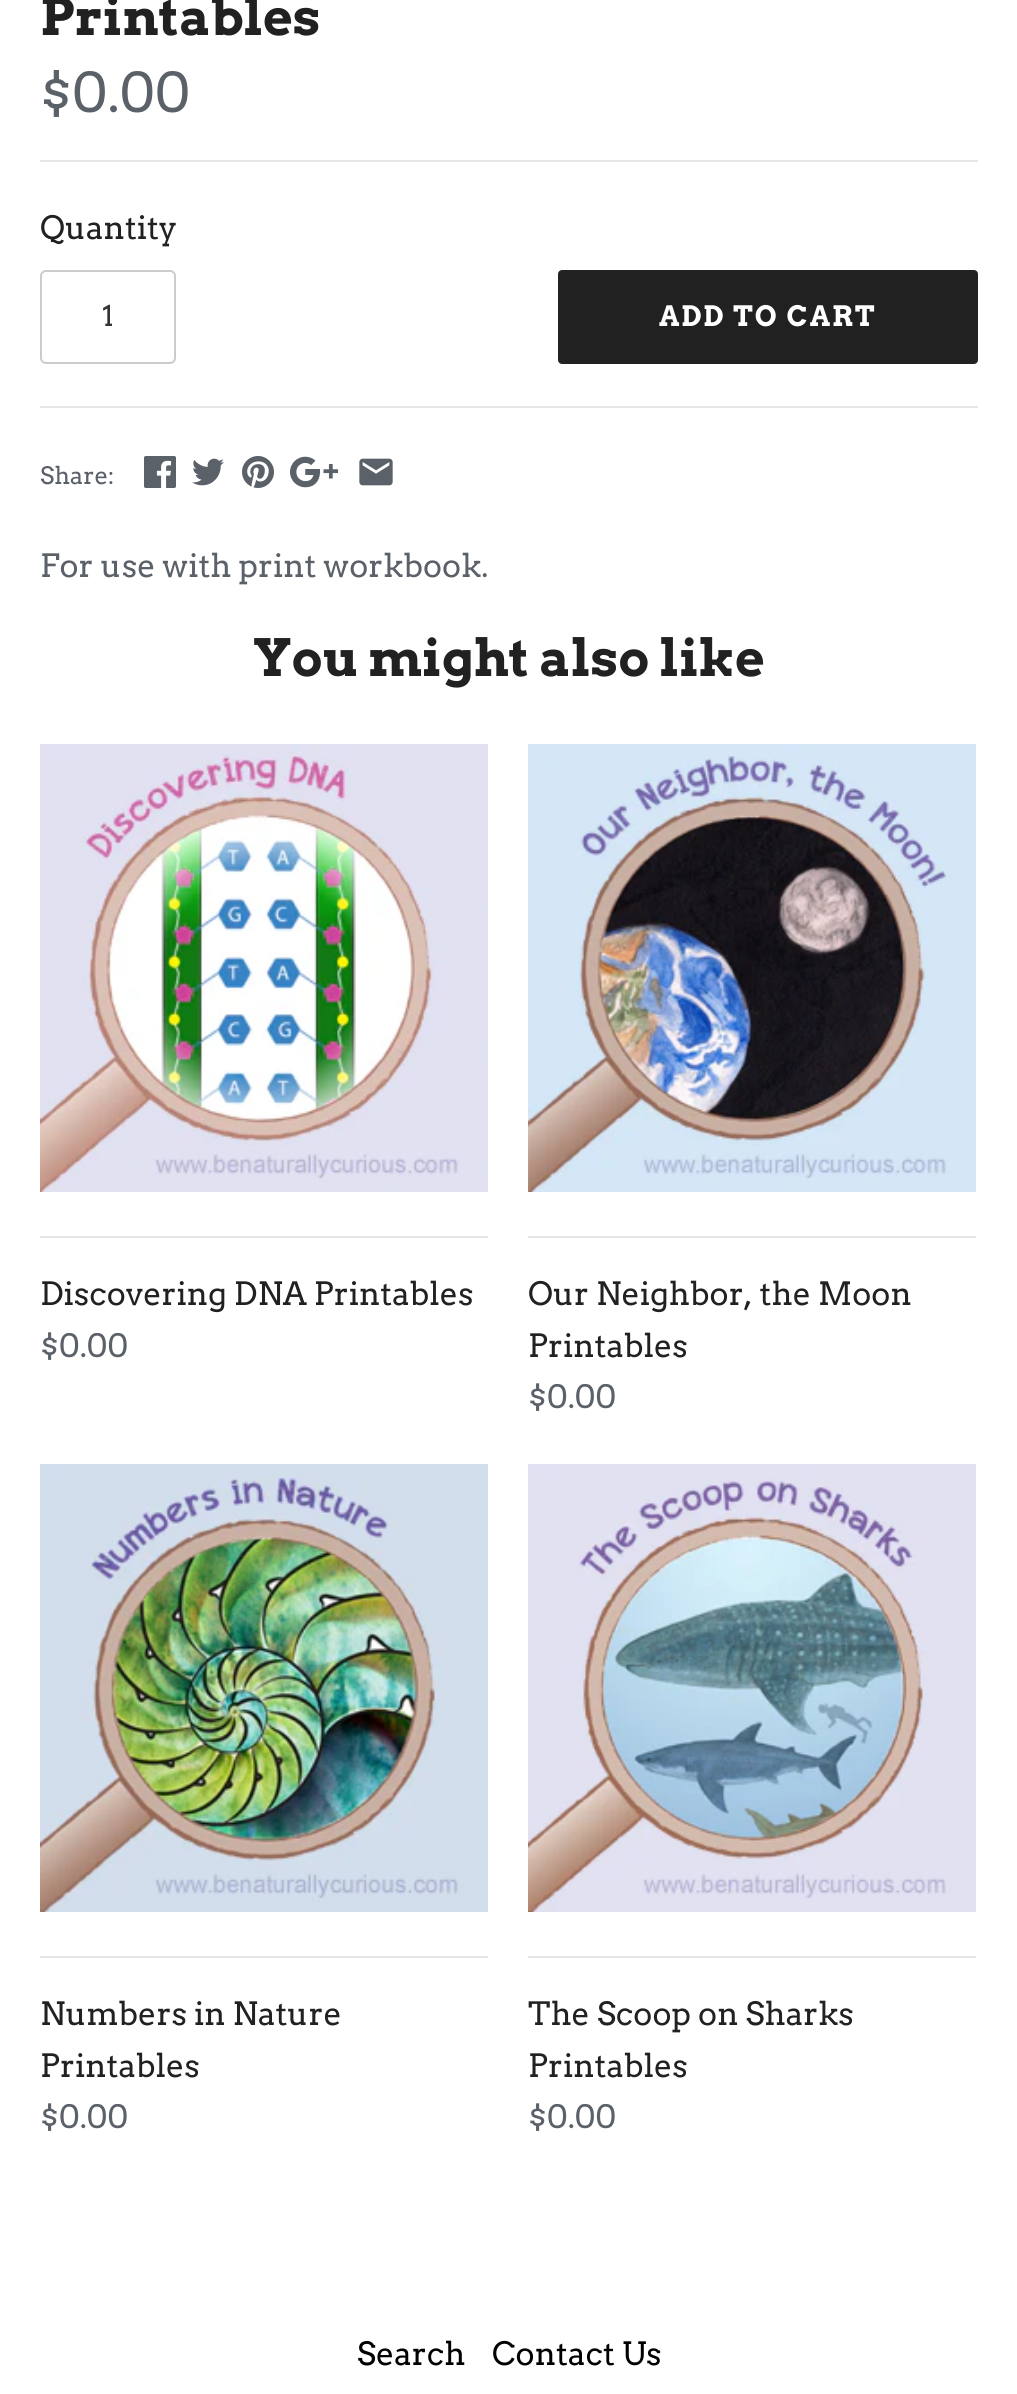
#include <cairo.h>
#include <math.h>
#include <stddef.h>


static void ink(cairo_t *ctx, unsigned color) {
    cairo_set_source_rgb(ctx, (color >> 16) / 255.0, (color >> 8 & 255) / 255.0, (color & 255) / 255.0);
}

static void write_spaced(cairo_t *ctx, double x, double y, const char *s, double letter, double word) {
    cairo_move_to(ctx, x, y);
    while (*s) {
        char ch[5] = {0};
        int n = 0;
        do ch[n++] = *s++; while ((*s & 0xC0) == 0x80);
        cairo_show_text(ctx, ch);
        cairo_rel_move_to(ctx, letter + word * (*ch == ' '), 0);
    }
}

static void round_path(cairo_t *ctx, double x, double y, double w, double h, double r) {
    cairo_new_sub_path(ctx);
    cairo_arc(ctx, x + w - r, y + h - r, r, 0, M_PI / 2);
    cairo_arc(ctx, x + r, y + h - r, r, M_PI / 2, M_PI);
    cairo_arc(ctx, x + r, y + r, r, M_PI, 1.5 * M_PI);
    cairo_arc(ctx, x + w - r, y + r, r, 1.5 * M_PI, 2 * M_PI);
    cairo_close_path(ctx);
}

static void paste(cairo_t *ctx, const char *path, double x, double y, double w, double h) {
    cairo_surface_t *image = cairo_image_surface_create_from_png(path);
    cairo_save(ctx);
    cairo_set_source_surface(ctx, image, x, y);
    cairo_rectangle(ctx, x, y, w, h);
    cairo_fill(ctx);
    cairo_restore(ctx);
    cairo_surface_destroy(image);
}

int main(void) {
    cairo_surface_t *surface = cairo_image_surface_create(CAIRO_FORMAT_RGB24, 1017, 2394);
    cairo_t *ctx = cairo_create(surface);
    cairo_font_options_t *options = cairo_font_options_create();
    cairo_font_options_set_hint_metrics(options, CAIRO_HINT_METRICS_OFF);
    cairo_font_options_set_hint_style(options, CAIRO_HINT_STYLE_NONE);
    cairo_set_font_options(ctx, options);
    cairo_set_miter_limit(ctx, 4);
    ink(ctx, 0xFFFFFF);
    cairo_paint(ctx);
    cairo_select_font_face(ctx, "Arvo", CAIRO_FONT_SLANT_NORMAL, CAIRO_FONT_WEIGHT_BOLD);
    cairo_set_font_size(ctx, 51.25);
    ink(ctx, 0x212121);
    cairo_move_to(ctx, 40, 35);
    cairo_show_text(ctx, "Printables");
    cairo_select_font_face(ctx, "Arvo", CAIRO_FONT_SLANT_NORMAL, CAIRO_FONT_WEIGHT_NORMAL);
    cairo_set_font_size(ctx, 54.5);
    ink(ctx, 0x5B6169);
    cairo_move_to(ctx, 40, 112);
    cairo_show_text(ctx, "$0.00");
    ink(ctx, 0xE7E7E7);
    cairo_rectangle(ctx, 40, 160, 938, 2);
    cairo_fill(ctx);
    cairo_set_font_size(ctx, 32);
    ink(ctx, 0x212121);
    cairo_move_to(ctx, 40, 239);
    cairo_show_text(ctx, "Quantity");
    round_path(ctx, 41, 271, 134, 92, 5);
    ink(ctx, 0xCCCCCC);
    cairo_stroke(ctx);
    cairo_set_font_size(ctx, 28);
    ink(ctx, 0x333333);
    cairo_move_to(ctx, 102, 326);
    cairo_show_text(ctx, "1");
    ink(ctx, 0x212121);
    round_path(ctx, 559, 271, 418, 92, 3);
    cairo_fill_preserve(ctx);
    cairo_stroke(ctx);
    cairo_select_font_face(ctx, "Arvo", CAIRO_FONT_SLANT_NORMAL, CAIRO_FONT_WEIGHT_BOLD);
    ink(ctx, 0xFFFFFF);
    write_spaced(ctx, 659, 326, "ADD TO CART", 2, 0);
    ink(ctx, 0xE7E7E7);
    cairo_rectangle(ctx, 40, 406, 938, 2);
    cairo_fill(ctx);
    cairo_select_font_face(ctx, "Arvo", CAIRO_FONT_SLANT_NORMAL, CAIRO_FONT_WEIGHT_NORMAL);
    cairo_set_font_size(ctx, 24);
    ink(ctx, 0x5B6169);
    cairo_move_to(ctx, 40, 484);
    cairo_show_text(ctx, "Share:");
    paste(ctx, "media/1.png", 144, 456, 32, 32);
    paste(ctx, "media/2.png", 192, 458, 32, 28);
    paste(ctx, "media/3.png", 242, 456, 32, 32);
    paste(ctx, "media/4.png", 290, 456, 48, 32);
    paste(ctx, "media/5.png", 359, 458, 34, 28);
    cairo_set_font_size(ctx, 32);
    cairo_move_to(ctx, 40, 577);
    cairo_show_text(ctx, "For use with print workbook.");
    cairo_select_font_face(ctx, "Arvo", CAIRO_FONT_SLANT_NORMAL, CAIRO_FONT_WEIGHT_BOLD);
    cairo_set_font_size(ctx, 51.25);
    ink(ctx, 0x212121);
    cairo_move_to(ctx, 253, 676);
    cairo_show_text(ctx, "You might also like");
    paste(ctx, "media/6.png", 40, 744, 448, 448);
    ink(ctx, 0xE7E7E7);
    cairo_rectangle(ctx, 40, 1236, 448, 2);
    cairo_fill(ctx);
    cairo_select_font_face(ctx, "Arvo", CAIRO_FONT_SLANT_NORMAL, CAIRO_FONT_WEIGHT_NORMAL);
    cairo_set_font_size(ctx, 32);
    ink(ctx, 0x212121);
    cairo_move_to(ctx, 40, 1305);
    cairo_show_text(ctx, "Discovering DNA Printables");
    ink(ctx, 0x5B6169);
    cairo_move_to(ctx, 40, 1357);
    cairo_show_text(ctx, "$0.00");
    paste(ctx, "media/7.png", 528, 744, 448, 448);
    ink(ctx, 0xE7E7E7);
    cairo_rectangle(ctx, 528, 1236, 448, 2);
    cairo_fill(ctx);
    ink(ctx, 0x212121);
    cairo_move_to(ctx, 528, 1305);
    cairo_show_text(ctx, "Our Neighbor, the Moon");
    cairo_move_to(ctx, 528, 1357);
    cairo_show_text(ctx, "Printables");
    ink(ctx, 0x5B6169);
    cairo_move_to(ctx, 528, 1408);
    cairo_show_text(ctx, "$0.00");
    paste(ctx, "media/8.png", 40, 1464, 448, 448);
    ink(ctx, 0xE7E7E7);
    cairo_rectangle(ctx, 40, 1956, 448, 2);
    cairo_fill(ctx);
    ink(ctx, 0x212121);
    cairo_move_to(ctx, 40, 2025);
    cairo_show_text(ctx, "Numbers in Nature");
    cairo_move_to(ctx, 40, 2077);
    cairo_show_text(ctx, "Printables");
    ink(ctx, 0x5B6169);
    cairo_move_to(ctx, 40, 2128);
    cairo_show_text(ctx, "$0.00");
    paste(ctx, "media/9.png", 528, 1464, 448, 448);
    ink(ctx, 0xE7E7E7);
    cairo_rectangle(ctx, 528, 1956, 448, 2);
    cairo_fill(ctx);
    ink(ctx, 0x212121);
    cairo_move_to(ctx, 528, 2025);
    cairo_show_text(ctx, "The Scoop on Sharks");
    cairo_move_to(ctx, 528, 2077);
    cairo_show_text(ctx, "Printables");
    ink(ctx, 0x5B6169);
    cairo_move_to(ctx, 528, 2128);
    cairo_show_text(ctx, "$0.00");
    ink(ctx, 0x000000);
    cairo_move_to(ctx, 357, 2365);
    cairo_show_text(ctx, "Search");
    cairo_move_to(ctx, 492, 2365);
    cairo_show_text(ctx, "Contact Us");
    cairo_surface_write_to_png(surface, "image.png");
    cairo_font_options_destroy(options);
    cairo_destroy(ctx);
    cairo_surface_destroy(surface);
    return 0;
}
